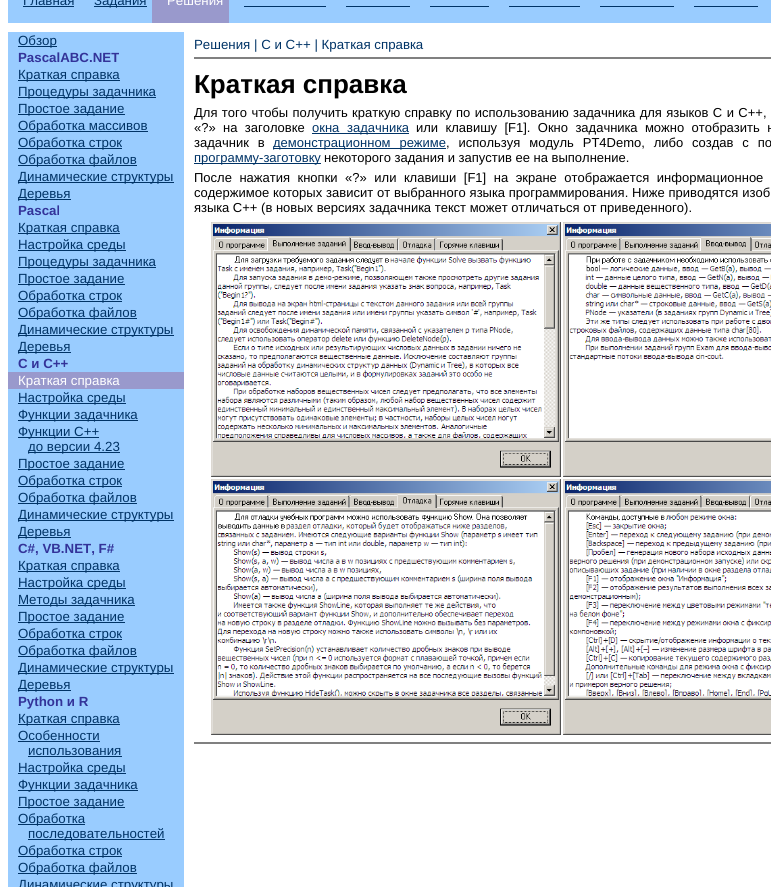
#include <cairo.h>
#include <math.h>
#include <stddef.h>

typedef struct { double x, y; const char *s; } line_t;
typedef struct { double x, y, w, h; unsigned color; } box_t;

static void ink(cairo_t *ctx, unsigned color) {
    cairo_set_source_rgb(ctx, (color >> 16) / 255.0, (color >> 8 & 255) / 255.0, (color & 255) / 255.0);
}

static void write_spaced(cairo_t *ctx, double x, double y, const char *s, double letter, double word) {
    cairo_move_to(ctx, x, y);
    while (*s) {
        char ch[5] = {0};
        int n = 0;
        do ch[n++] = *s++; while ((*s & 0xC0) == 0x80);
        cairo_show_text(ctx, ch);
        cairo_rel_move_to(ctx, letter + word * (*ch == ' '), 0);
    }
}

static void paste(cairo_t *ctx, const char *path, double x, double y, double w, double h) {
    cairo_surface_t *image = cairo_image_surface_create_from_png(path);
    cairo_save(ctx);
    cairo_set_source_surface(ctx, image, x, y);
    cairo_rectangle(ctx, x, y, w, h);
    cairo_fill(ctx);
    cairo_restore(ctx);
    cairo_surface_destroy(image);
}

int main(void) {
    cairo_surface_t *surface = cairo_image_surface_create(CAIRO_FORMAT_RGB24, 771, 887);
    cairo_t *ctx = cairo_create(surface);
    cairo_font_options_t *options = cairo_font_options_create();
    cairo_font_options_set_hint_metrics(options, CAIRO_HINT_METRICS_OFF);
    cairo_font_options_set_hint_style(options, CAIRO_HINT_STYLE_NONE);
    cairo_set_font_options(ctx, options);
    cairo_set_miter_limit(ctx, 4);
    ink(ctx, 0xFFFFFF);
    cairo_paint(ctx);
    ink(ctx, 0x99CCFF);
    cairo_rectangle(ctx, 8, 0, 144, 23);
    cairo_fill(ctx);
    cairo_select_font_face(ctx, "Liberation Sans", CAIRO_FONT_SLANT_NORMAL, CAIRO_FONT_WEIGHT_NORMAL);
    cairo_set_font_size(ctx, 13.3);
    ink(ctx, 0x003366);
    cairo_move_to(ctx, 23, 5);
    cairo_show_text(ctx, "Главная");
    cairo_rectangle(ctx, 23, 6, 51, 1);
    cairo_fill(ctx);
    cairo_rectangle(ctx, 94, 6, 53, 1);
    cairo_fill(ctx);
    cairo_move_to(ctx, 94, 5);
    cairo_show_text(ctx, "Задания");
    ink(ctx, 0x9999CC);
    cairo_rectangle(ctx, 152, 0, 77, 23);
    cairo_fill(ctx);
    ink(ctx, 0xFFFFFF);
    cairo_move_to(ctx, 167, 5);
    cairo_show_text(ctx, "Решения");
    {
        static const box_t items[] = {
            {229, 0, 542, 23, 0x99CCFF},
            {244, 6, 82, 1, 0x003366},
            {346, 6, 64, 1, 0x003366},
            {430, 6, 59, 1, 0x003366},
            {509, 6, 71, 1, 0x003366},
            {600, 6, 74, 1, 0x003366},
            {694, 6, 64, 1, 0x003366},
            {8, 32, 176, 340, 0x99CCFF},
            {18, 46, 39, 1, 0x003366},
        };
        for (size_t i = 0; i < sizeof items / sizeof *items; i++) {
            ink(ctx, items[i].color);
            cairo_rectangle(ctx, items[i].x, items[i].y, items[i].w, items[i].h);
            cairo_fill(ctx);
        }
    }
    cairo_move_to(ctx, 18, 45);
    cairo_show_text(ctx, "Обзор");
    cairo_select_font_face(ctx, "Liberation Sans", CAIRO_FONT_SLANT_NORMAL, CAIRO_FONT_WEIGHT_BOLD);
    ink(ctx, 0x333399);
    cairo_move_to(ctx, 18, 62);
    cairo_show_text(ctx, "PascalABC.NET");
    ink(ctx, 0x003366);
    cairo_rectangle(ctx, 18, 80, 102, 1);
    cairo_fill(ctx);
    cairo_select_font_face(ctx, "Liberation Sans", CAIRO_FONT_SLANT_NORMAL, CAIRO_FONT_WEIGHT_NORMAL);
    cairo_move_to(ctx, 18, 79);
    cairo_show_text(ctx, "Краткая справка");
    cairo_rectangle(ctx, 18, 97, 138, 1);
    cairo_fill(ctx);
    cairo_move_to(ctx, 18, 96);
    cairo_show_text(ctx, "Процедуры задачника");
    cairo_rectangle(ctx, 18, 114, 107, 1);
    cairo_fill(ctx);
    cairo_move_to(ctx, 18, 113);
    cairo_show_text(ctx, "Простое задание");
    cairo_rectangle(ctx, 18, 131, 130, 1);
    cairo_fill(ctx);
    cairo_move_to(ctx, 18, 130);
    cairo_show_text(ctx, "Обработка массивов");
    cairo_rectangle(ctx, 18, 148, 104, 1);
    cairo_fill(ctx);
    cairo_move_to(ctx, 18, 147);
    cairo_show_text(ctx, "Обработка строк");
    cairo_rectangle(ctx, 18, 165, 119, 1);
    cairo_fill(ctx);
    cairo_move_to(ctx, 18, 164);
    cairo_show_text(ctx, "Обработка файлов");
    cairo_rectangle(ctx, 18, 182, 156, 1);
    cairo_fill(ctx);
    cairo_move_to(ctx, 18, 181);
    cairo_show_text(ctx, "Динамические структуры");
    cairo_rectangle(ctx, 18, 199, 53, 1);
    cairo_fill(ctx);
    cairo_move_to(ctx, 18, 198);
    cairo_show_text(ctx, "Деревья");
    cairo_select_font_face(ctx, "Liberation Sans", CAIRO_FONT_SLANT_NORMAL, CAIRO_FONT_WEIGHT_BOLD);
    ink(ctx, 0x333399);
    cairo_move_to(ctx, 18, 215);
    cairo_show_text(ctx, "Pascal");
    ink(ctx, 0x003366);
    cairo_rectangle(ctx, 18, 233, 102, 1);
    cairo_fill(ctx);
    cairo_select_font_face(ctx, "Liberation Sans", CAIRO_FONT_SLANT_NORMAL, CAIRO_FONT_WEIGHT_NORMAL);
    cairo_move_to(ctx, 18, 232);
    cairo_show_text(ctx, "Краткая справка");
    cairo_rectangle(ctx, 18, 250, 108, 1);
    cairo_fill(ctx);
    cairo_move_to(ctx, 18, 249);
    cairo_show_text(ctx, "Настройка среды");
    cairo_rectangle(ctx, 18, 267, 138, 1);
    cairo_fill(ctx);
    cairo_move_to(ctx, 18, 266);
    cairo_show_text(ctx, "Процедуры задачника");
    cairo_rectangle(ctx, 18, 284, 107, 1);
    cairo_fill(ctx);
    cairo_move_to(ctx, 18, 283);
    cairo_show_text(ctx, "Простое задание");
    cairo_rectangle(ctx, 18, 301, 104, 1);
    cairo_fill(ctx);
    cairo_move_to(ctx, 18, 300);
    cairo_show_text(ctx, "Обработка строк");
    cairo_rectangle(ctx, 18, 318, 119, 1);
    cairo_fill(ctx);
    cairo_move_to(ctx, 18, 317);
    cairo_show_text(ctx, "Обработка файлов");
    cairo_rectangle(ctx, 18, 335, 156, 1);
    cairo_fill(ctx);
    cairo_move_to(ctx, 18, 334);
    cairo_show_text(ctx, "Динамические структуры");
    cairo_rectangle(ctx, 18, 352, 53, 1);
    cairo_fill(ctx);
    cairo_move_to(ctx, 18, 351);
    cairo_show_text(ctx, "Деревья");
    cairo_select_font_face(ctx, "Liberation Sans", CAIRO_FONT_SLANT_NORMAL, CAIRO_FONT_WEIGHT_BOLD);
    ink(ctx, 0x333399);
    cairo_move_to(ctx, 18, 368);
    cairo_show_text(ctx, "C и C++");
    ink(ctx, 0x9999CC);
    cairo_rectangle(ctx, 8, 372, 176, 17);
    cairo_fill(ctx);
    cairo_select_font_face(ctx, "Liberation Sans", CAIRO_FONT_SLANT_NORMAL, CAIRO_FONT_WEIGHT_NORMAL);
    ink(ctx, 0xFFFFFF);
    cairo_move_to(ctx, 18, 385);
    cairo_show_text(ctx, "Краткая справка");
    ink(ctx, 0x99CCFF);
    cairo_rectangle(ctx, 8, 389, 176, 498);
    cairo_fill(ctx);
    ink(ctx, 0x003366);
    cairo_rectangle(ctx, 18, 403, 108, 1);
    cairo_fill(ctx);
    cairo_move_to(ctx, 18, 402);
    cairo_show_text(ctx, "Настройка среды");
    cairo_rectangle(ctx, 18, 420, 120, 1);
    cairo_fill(ctx);
    cairo_move_to(ctx, 18, 419);
    cairo_show_text(ctx, "Функции задачника");
    cairo_rectangle(ctx, 18, 437, 81, 1);
    cairo_fill(ctx);
    cairo_move_to(ctx, 18, 436);
    cairo_show_text(ctx, "Функции C++");
    cairo_rectangle(ctx, 28, 452, 92, 1);
    cairo_fill(ctx);
    cairo_move_to(ctx, 28, 451);
    cairo_show_text(ctx, "до версии 4.23");
    cairo_rectangle(ctx, 18, 469, 107, 1);
    cairo_fill(ctx);
    cairo_move_to(ctx, 18, 468);
    cairo_show_text(ctx, "Простое задание");
    cairo_rectangle(ctx, 18, 486, 104, 1);
    cairo_fill(ctx);
    cairo_move_to(ctx, 18, 485);
    cairo_show_text(ctx, "Обработка строк");
    cairo_rectangle(ctx, 18, 503, 119, 1);
    cairo_fill(ctx);
    cairo_move_to(ctx, 18, 502);
    cairo_show_text(ctx, "Обработка файлов");
    cairo_rectangle(ctx, 18, 520, 156, 1);
    cairo_fill(ctx);
    cairo_move_to(ctx, 18, 519);
    cairo_show_text(ctx, "Динамические структуры");
    cairo_rectangle(ctx, 18, 537, 53, 1);
    cairo_fill(ctx);
    cairo_move_to(ctx, 18, 536);
    cairo_show_text(ctx, "Деревья");
    cairo_select_font_face(ctx, "Liberation Sans", CAIRO_FONT_SLANT_NORMAL, CAIRO_FONT_WEIGHT_BOLD);
    ink(ctx, 0x333399);
    cairo_move_to(ctx, 18, 553);
    cairo_show_text(ctx, "C#, VB.NET, F#");
    ink(ctx, 0x003366);
    cairo_rectangle(ctx, 18, 571, 102, 1);
    cairo_fill(ctx);
    cairo_select_font_face(ctx, "Liberation Sans", CAIRO_FONT_SLANT_NORMAL, CAIRO_FONT_WEIGHT_NORMAL);
    cairo_move_to(ctx, 18, 570);
    cairo_show_text(ctx, "Краткая справка");
    cairo_rectangle(ctx, 18, 588, 108, 1);
    cairo_fill(ctx);
    cairo_move_to(ctx, 18, 587);
    cairo_show_text(ctx, "Настройка среды");
    cairo_rectangle(ctx, 18, 605, 117, 1);
    cairo_fill(ctx);
    cairo_move_to(ctx, 18, 604);
    cairo_show_text(ctx, "Методы задачника");
    cairo_rectangle(ctx, 18, 622, 107, 1);
    cairo_fill(ctx);
    cairo_move_to(ctx, 18, 621);
    cairo_show_text(ctx, "Простое задание");
    cairo_rectangle(ctx, 18, 639, 104, 1);
    cairo_fill(ctx);
    cairo_move_to(ctx, 18, 638);
    cairo_show_text(ctx, "Обработка строк");
    cairo_rectangle(ctx, 18, 656, 119, 1);
    cairo_fill(ctx);
    cairo_move_to(ctx, 18, 655);
    cairo_show_text(ctx, "Обработка файлов");
    cairo_rectangle(ctx, 18, 673, 156, 1);
    cairo_fill(ctx);
    cairo_move_to(ctx, 18, 672);
    cairo_show_text(ctx, "Динамические структуры");
    cairo_rectangle(ctx, 18, 690, 53, 1);
    cairo_fill(ctx);
    cairo_move_to(ctx, 18, 689);
    cairo_show_text(ctx, "Деревья");
    cairo_select_font_face(ctx, "Liberation Sans", CAIRO_FONT_SLANT_NORMAL, CAIRO_FONT_WEIGHT_BOLD);
    ink(ctx, 0x333399);
    cairo_move_to(ctx, 18, 706);
    cairo_show_text(ctx, "Python и R");
    ink(ctx, 0x003366);
    cairo_rectangle(ctx, 18, 724, 102, 1);
    cairo_fill(ctx);
    cairo_select_font_face(ctx, "Liberation Sans", CAIRO_FONT_SLANT_NORMAL, CAIRO_FONT_WEIGHT_NORMAL);
    cairo_move_to(ctx, 18, 723);
    cairo_show_text(ctx, "Краткая справка");
    cairo_move_to(ctx, 18, 740);
    cairo_show_text(ctx, "Особенности");
    cairo_rectangle(ctx, 18, 741, 82, 1);
    cairo_fill(ctx);
    cairo_move_to(ctx, 28, 755);
    cairo_show_text(ctx, "использования");
    cairo_rectangle(ctx, 28, 756, 94, 1);
    cairo_fill(ctx);
    cairo_rectangle(ctx, 18, 773, 108, 1);
    cairo_fill(ctx);
    cairo_move_to(ctx, 18, 772);
    cairo_show_text(ctx, "Настройка среды");
    cairo_rectangle(ctx, 18, 790, 120, 1);
    cairo_fill(ctx);
    cairo_move_to(ctx, 18, 789);
    cairo_show_text(ctx, "Функции задачника");
    cairo_rectangle(ctx, 18, 807, 107, 1);
    cairo_fill(ctx);
    cairo_move_to(ctx, 18, 806);
    cairo_show_text(ctx, "Простое задание");
    cairo_rectangle(ctx, 18, 824, 67, 1);
    cairo_fill(ctx);
    cairo_move_to(ctx, 18, 823);
    cairo_show_text(ctx, "Обработка");
    cairo_rectangle(ctx, 28, 839, 137, 1);
    cairo_fill(ctx);
    cairo_move_to(ctx, 28, 838);
    cairo_show_text(ctx, "последовательностей");
    cairo_rectangle(ctx, 18, 856, 104, 1);
    cairo_fill(ctx);
    cairo_move_to(ctx, 18, 855);
    cairo_show_text(ctx, "Обработка строк");
    cairo_rectangle(ctx, 18, 873, 119, 1);
    cairo_fill(ctx);
    {
        static const line_t items[] = {
            {18, 872, "Обработка файлов"},
            {18, 889, "Динамические структуры"},
            {194, 49, "Решения | C и C++ | Краткая справка"},
        };
        for (size_t i = 0; i < sizeof items / sizeof *items; i++) {
            cairo_move_to(ctx, items[i].x, items[i].y);
            cairo_show_text(ctx, items[i].s);
        }
    }
    ink(ctx, 0x808080);
    cairo_rectangle(ctx, 194, 57, 577, 2);
    cairo_fill(ctx);
    cairo_select_font_face(ctx, "Liberation Sans", CAIRO_FONT_SLANT_NORMAL, CAIRO_FONT_WEIGHT_BOLD);
    cairo_set_font_size(ctx, 26);
    ink(ctx, 0x000000);
    cairo_move_to(ctx, 194, 93);
    cairo_show_text(ctx, "Краткая справка");
    cairo_select_font_face(ctx, "Liberation Sans", CAIRO_FONT_SLANT_NORMAL, CAIRO_FONT_WEIGHT_NORMAL);
    cairo_set_font_size(ctx, 13);
    write_spaced(ctx, 194, 117, "Для того чтобы получить краткую справку по использованию задачника для языков C и C++,", 0, 0.8);
    write_spaced(ctx, 194, 132, "«?» на заголовке", 0, 3.75);
    ink(ctx, 0x003366);
    cairo_rectangle(ctx, 312, 133, 97, 1);
    cairo_fill(ctx);
    write_spaced(ctx, 312, 132, "окна задачника", 0, 4);
    ink(ctx, 0x000000);
    write_spaced(ctx, 416, 132, "или клавишу [F1]. Окно задачника можно отобразить н", 0, 3.75);
    write_spaced(ctx, 194, 147, "задачник в", 0, 5.25);
    ink(ctx, 0x003366);
    cairo_rectangle(ctx, 273, 148, 173, 1);
    cairo_fill(ctx);
    write_spaced(ctx, 273, 147, "демонстрационном режиме", 0, 5.25);
    ink(ctx, 0x000000);
    write_spaced(ctx, 446, 147, ", используя модуль PT4Demo, либо создав с по", 0, 5.25);
    ink(ctx, 0x003366);
    cairo_rectangle(ctx, 194, 163, 127, 1);
    cairo_fill(ctx);
    cairo_move_to(ctx, 194, 162);
    cairo_show_text(ctx, "программу-заготовку");
    ink(ctx, 0x000000);
    cairo_move_to(ctx, 324, 162);
    cairo_show_text(ctx, "некоторого задания и запустив ее на выполнение.");
    write_spaced(ctx, 194, 182, "После нажатия кнопки «?» или клавиши [F1] на экране отображается информационное", 0, 3.9);
    write_spaced(ctx, 194, 197, "содержимое которых зависит от выбранного языка программирования. Ниже приводятся изоб", 0, 0.25);
    cairo_move_to(ctx, 194, 212);
    cairo_show_text(ctx, "языка C++ (в новых версиях задачника текст может отличаться от приведенного).");
    paste(ctx, "media/1.png", 211, 222, 350, 255);
    paste(ctx, "media/2.png", 563, 222, 208, 255);
    paste(ctx, "media/3.png", 211, 479, 350, 256);
    paste(ctx, "media/4.png", 563, 479, 208, 256);
    ink(ctx, 0x808080);
    cairo_rectangle(ctx, 194, 742, 577, 2);
    cairo_fill(ctx);
    cairo_surface_write_to_png(surface, "image.png");
    cairo_font_options_destroy(options);
    cairo_destroy(ctx);
    cairo_surface_destroy(surface);
    return 0;
}
